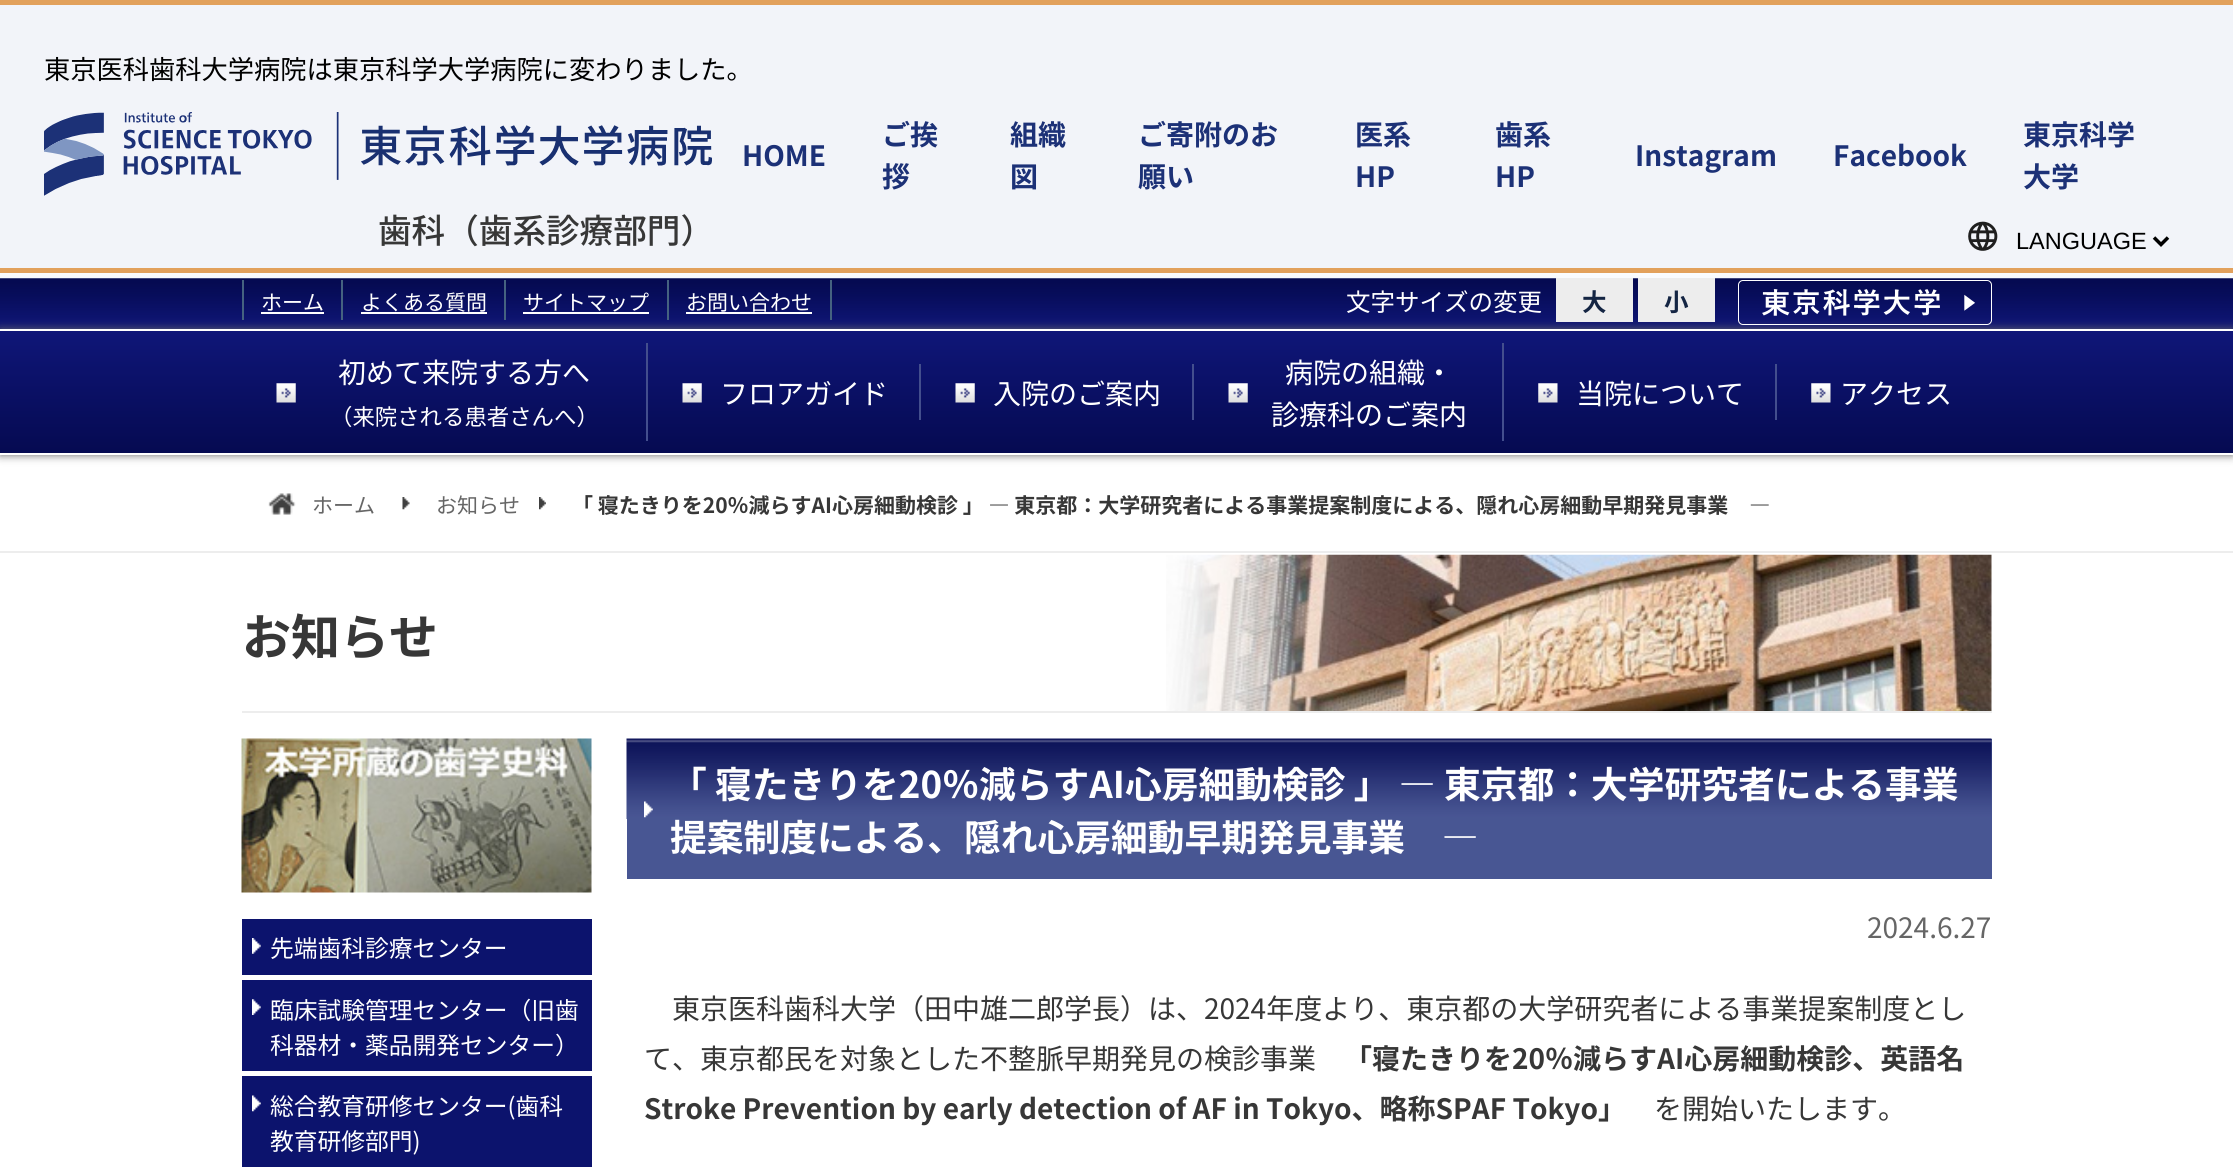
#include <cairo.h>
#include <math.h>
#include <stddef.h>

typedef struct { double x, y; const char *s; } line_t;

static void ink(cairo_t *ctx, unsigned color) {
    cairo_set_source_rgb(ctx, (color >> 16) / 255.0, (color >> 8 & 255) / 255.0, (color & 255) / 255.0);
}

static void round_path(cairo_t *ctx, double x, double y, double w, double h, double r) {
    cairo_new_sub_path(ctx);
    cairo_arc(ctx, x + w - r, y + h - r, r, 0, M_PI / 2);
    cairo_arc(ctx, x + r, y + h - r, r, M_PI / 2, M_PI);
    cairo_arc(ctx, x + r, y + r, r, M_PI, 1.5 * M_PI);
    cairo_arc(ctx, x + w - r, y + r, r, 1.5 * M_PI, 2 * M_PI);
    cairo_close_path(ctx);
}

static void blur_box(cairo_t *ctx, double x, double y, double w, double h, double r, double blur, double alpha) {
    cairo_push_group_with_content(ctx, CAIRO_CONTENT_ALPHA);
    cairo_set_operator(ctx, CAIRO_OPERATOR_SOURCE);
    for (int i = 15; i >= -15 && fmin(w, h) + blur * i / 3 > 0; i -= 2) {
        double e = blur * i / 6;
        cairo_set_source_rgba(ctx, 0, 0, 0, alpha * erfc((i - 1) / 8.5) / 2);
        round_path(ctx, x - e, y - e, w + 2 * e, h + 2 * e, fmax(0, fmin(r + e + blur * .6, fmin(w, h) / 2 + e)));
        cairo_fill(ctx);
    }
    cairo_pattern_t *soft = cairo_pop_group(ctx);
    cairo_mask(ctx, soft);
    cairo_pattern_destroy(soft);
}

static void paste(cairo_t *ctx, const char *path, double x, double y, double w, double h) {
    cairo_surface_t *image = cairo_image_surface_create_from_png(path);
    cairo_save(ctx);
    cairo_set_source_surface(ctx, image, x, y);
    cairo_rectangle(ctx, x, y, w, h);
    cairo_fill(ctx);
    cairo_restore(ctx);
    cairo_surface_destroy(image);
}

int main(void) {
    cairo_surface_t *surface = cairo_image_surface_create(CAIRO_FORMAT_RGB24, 2233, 1167);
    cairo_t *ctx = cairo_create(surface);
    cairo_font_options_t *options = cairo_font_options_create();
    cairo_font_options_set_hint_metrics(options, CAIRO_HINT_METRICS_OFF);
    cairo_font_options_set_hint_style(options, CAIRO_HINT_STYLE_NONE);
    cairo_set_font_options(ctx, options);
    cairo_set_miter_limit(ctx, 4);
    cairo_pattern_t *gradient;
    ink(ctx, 0xFFFFFF);
    cairo_paint(ctx);
    paste(ctx, "media/1.png", 0, 273, 2233, 6);
    ink(ctx, 0xE2A15C);
    cairo_rectangle(ctx, 0, 0, 2233, 5);
    cairo_fill(ctx);
    ink(ctx, 0xF2F4F9);
    cairo_rectangle(ctx, 0, 5, 2233, 263);
    cairo_fill(ctx);
    cairo_select_font_face(ctx, "Noto Sans JP", CAIRO_FONT_SLANT_NORMAL, CAIRO_FONT_WEIGHT_NORMAL);
    cairo_set_font_size(ctx, 26.25);
    ink(ctx, 0x000000);
    cairo_move_to(ctx, 44, 79);
    cairo_show_text(ctx, "東京医科歯科大学病院は東京科学大学病院に変わりました。");
    paste(ctx, "media/2.png", 44, 112, 668, 84);
    cairo_select_font_face(ctx, "Noto Sans JP Medium", CAIRO_FONT_SLANT_NORMAL, CAIRO_FONT_WEIGHT_NORMAL);
    cairo_set_font_size(ctx, 33.6);
    ink(ctx, 0x373737);
    cairo_move_to(ctx, 378, 243);
    cairo_show_text(ctx, "歯科（歯系診療部門）");
    cairo_select_font_face(ctx, "Noto Sans JP", CAIRO_FONT_SLANT_NORMAL, CAIRO_FONT_WEIGHT_BOLD);
    cairo_set_font_size(ctx, 28);
    ink(ctx, 0x1C3177);
    {
        static const line_t items[] = {
            {742, 166, "HOME"},
            {882, 145, "ご挨"},
            {882, 187, "拶"},
            {1010, 145, "組織"},
            {1010, 187, "図"},
            {1138, 145, "ご寄附のお"},
            {1138, 187, "願い"},
            {1355, 145, "医系"},
            {1355, 187, "HP"},
            {1495, 145, "歯系"},
            {1495, 187, "HP"},
            {1635, 166, "Instagram"},
            {1833, 166, "Facebook"},
            {2023, 145, "東京科学"},
            {2023, 187, "大学"},
        };
        for (size_t i = 0; i < sizeof items / sizeof *items; i++) {
            cairo_move_to(ctx, items[i].x, items[i].y);
            cairo_show_text(ctx, items[i].s);
        }
    }
    paste(ctx, "media/3.png", 1968, 221, 30, 30);
    cairo_new_path(ctx);
    cairo_move_to(ctx, 2154, 237.5);
    cairo_line_to(ctx, 2161, 244.5);
    cairo_line_to(ctx, 2168, 237.5);
    ink(ctx, 0x000000);
    cairo_set_line_width(ctx, 3.5);
    cairo_stroke(ctx);
    cairo_select_font_face(ctx, "Liberation Sans", CAIRO_FONT_SLANT_NORMAL, CAIRO_FONT_WEIGHT_NORMAL);
    cairo_set_font_size(ctx, 23.5);
    cairo_move_to(ctx, 2016, 249);
    cairo_show_text(ctx, "LANGUAGE");
    paste(ctx, "media/4.png", 0, 278, 2233, 51);
    ink(ctx, 0xE2A15C);
    cairo_rectangle(ctx, 0, 268, 2233, 5);
    cairo_fill(ctx);
    ink(ctx, 0x666666);
    blur_box(ctx, 0, 329, 2233, 126, 0, 4.5, 1);
    ink(ctx, 0x456280);
    cairo_rectangle(ctx, 341, 280, 2, 40);
    cairo_fill(ctx);
    cairo_rectangle(ctx, 242, 280, 2, 40);
    cairo_fill(ctx);
    cairo_select_font_face(ctx, "Noto Sans JP", CAIRO_FONT_SLANT_NORMAL, CAIRO_FONT_WEIGHT_NORMAL);
    cairo_set_font_size(ctx, 21);
    ink(ctx, 0xFFFFFF);
    cairo_move_to(ctx, 261, 310);
    cairo_show_text(ctx, "ホーム");
    cairo_rectangle(ctx, 261, 312, 63, 2);
    cairo_fill(ctx);
    ink(ctx, 0x456280);
    cairo_rectangle(ctx, 504, 280, 2, 40);
    cairo_fill(ctx);
    ink(ctx, 0xFFFFFF);
    cairo_move_to(ctx, 361, 310);
    cairo_show_text(ctx, "よくある質問");
    cairo_rectangle(ctx, 361, 312, 126, 2);
    cairo_fill(ctx);
    ink(ctx, 0x456280);
    cairo_rectangle(ctx, 667, 280, 2, 40);
    cairo_fill(ctx);
    ink(ctx, 0xFFFFFF);
    cairo_move_to(ctx, 523, 310);
    cairo_show_text(ctx, "サイトマップ");
    cairo_rectangle(ctx, 523, 312, 126, 2);
    cairo_fill(ctx);
    ink(ctx, 0x456280);
    cairo_rectangle(ctx, 830, 280, 2, 40);
    cairo_fill(ctx);
    ink(ctx, 0xFFFFFF);
    cairo_move_to(ctx, 686, 310);
    cairo_show_text(ctx, "お問い合わせ");
    cairo_rectangle(ctx, 686, 312, 126, 2);
    cairo_fill(ctx);
    cairo_set_font_size(ctx, 24.5);
    cairo_move_to(ctx, 1346, 311);
    cairo_show_text(ctx, "文字サイズの変更");
    ink(ctx, 0xEDEDED);
    cairo_rectangle(ctx, 1556, 278, 77, 44);
    cairo_fill(ctx);
    cairo_select_font_face(ctx, "Noto Sans JP", CAIRO_FONT_SLANT_NORMAL, CAIRO_FONT_WEIGHT_BOLD);
    ink(ctx, 0x142543);
    cairo_move_to(ctx, 1582, 311);
    cairo_show_text(ctx, "大");
    ink(ctx, 0xEDEDED);
    cairo_rectangle(ctx, 1638, 278, 77, 44);
    cairo_fill(ctx);
    ink(ctx, 0x142543);
    cairo_move_to(ctx, 1664, 311);
    cairo_show_text(ctx, "小");
    paste(ctx, "media/5.png", 1738, 280, 254, 45);
    gradient = cairo_pattern_create_linear(1117, 331, 1117, 453);
    cairo_pattern_add_color_stop_rgba(gradient, 0, 0.059, 0.086, 0.471, 1);
    cairo_pattern_add_color_stop_rgba(gradient, 1, 0.02, 0.039, 0.318, 1);
    cairo_set_source(ctx, gradient);
    cairo_pattern_destroy(gradient);
    cairo_rectangle(ctx, 0, 331, 2233, 122);
    cairo_fill(ctx);
    ink(ctx, 0xFFFFFF);
    cairo_rectangle(ctx, 0, 329, 2233, 2);
    cairo_fill(ctx);
    cairo_rectangle(ctx, 0, 453, 2233, 2);
    cairo_fill(ctx);
    paste(ctx, "media/6.png", 276, 383, 20, 20);
    ink(ctx, 0x434E8D);
    cairo_rectangle(ctx, 646, 343, 2, 98);
    cairo_fill(ctx);
    cairo_select_font_face(ctx, "Noto Sans JP", CAIRO_FONT_SLANT_NORMAL, CAIRO_FONT_WEIGHT_NORMAL);
    cairo_set_font_size(ctx, 28);
    ink(ctx, 0xFFFFFF);
    cairo_move_to(ctx, 338, 383);
    cairo_show_text(ctx, "初めて来院する方へ");
    cairo_set_font_size(ctx, 22.4);
    cairo_move_to(ctx, 330, 425);
    cairo_show_text(ctx, "（来院される患者さんへ）");
    paste(ctx, "media/7.png", 682, 383, 20, 20);
    ink(ctx, 0x434E8D);
    cairo_rectangle(ctx, 919, 364, 2, 56);
    cairo_fill(ctx);
    cairo_set_font_size(ctx, 28);
    ink(ctx, 0xFFFFFF);
    cairo_move_to(ctx, 720, 404);
    cairo_show_text(ctx, "フロアガイド");
    paste(ctx, "media/8.png", 955, 383, 20, 20);
    ink(ctx, 0x434E8D);
    cairo_rectangle(ctx, 1192, 364, 2, 56);
    cairo_fill(ctx);
    ink(ctx, 0xFFFFFF);
    cairo_move_to(ctx, 993, 404);
    cairo_show_text(ctx, "入院のご案内");
    paste(ctx, "media/7.png", 1228, 383, 20, 20);
    ink(ctx, 0x434E8D);
    cairo_rectangle(ctx, 1502, 343, 2, 98);
    cairo_fill(ctx);
    ink(ctx, 0xFFFFFF);
    cairo_move_to(ctx, 1285, 383);
    cairo_show_text(ctx, "病院の組織・");
    cairo_move_to(ctx, 1271, 425);
    cairo_show_text(ctx, "診療科のご案内");
    paste(ctx, "media/9.png", 1538, 383, 20, 20);
    ink(ctx, 0x434E8D);
    cairo_rectangle(ctx, 1775, 364, 2, 56);
    cairo_fill(ctx);
    ink(ctx, 0xFFFFFF);
    cairo_move_to(ctx, 1576, 404);
    cairo_show_text(ctx, "当院について");
    paste(ctx, "media/9.png", 1811, 383, 20, 20);
    cairo_move_to(ctx, 1840, 404);
    cairo_show_text(ctx, "アクセス");
    ink(ctx, 0xEDEDED);
    cairo_rectangle(ctx, 0, 551, 2233, 2);
    cairo_fill(ctx);
    paste(ctx, "media/10.png", 402, 497, 8, 13);
    paste(ctx, "media/11.png", 268, 493, 28, 22);
    cairo_set_font_size(ctx, 21);
    ink(ctx, 0x666666);
    cairo_move_to(ctx, 312, 513);
    cairo_show_text(ctx, "ホーム");
    paste(ctx, "media/12.png", 539, 497, 7, 13);
    cairo_move_to(ctx, 436, 513);
    cairo_show_text(ctx, "お知らせ");
    cairo_select_font_face(ctx, "Noto Sans JP", CAIRO_FONT_SLANT_NORMAL, CAIRO_FONT_WEIGHT_BOLD);
    ink(ctx, 0x373737);
    cairo_move_to(ctx, 572, 513);
    cairo_show_text(ctx, "「 寝たきりを20％減らすAI心房細動検診 」 ― 東京都：大学研究者による事業提案制度による、隠れ心房細動早期発見事業　―");
    paste(ctx, "media/13.png", 1166, 554, 826, 157);
    ink(ctx, 0xEDEDED);
    cairo_rectangle(ctx, 242, 711, 1750, 2);
    cairo_fill(ctx);
    cairo_set_font_size(ctx, 49);
    ink(ctx, 0x373737);
    cairo_move_to(ctx, 242, 655);
    cairo_show_text(ctx, "お知らせ");
    paste(ctx, "media/14.png", 241, 738, 351, 155);
    ink(ctx, 0x0C136D);
    cairo_rectangle(ctx, 242, 919, 350, 56);
    cairo_fill(ctx);
    paste(ctx, "media/15.png", 252, 938, 9, 16);
    cairo_select_font_face(ctx, "Noto Sans JP", CAIRO_FONT_SLANT_NORMAL, CAIRO_FONT_WEIGHT_NORMAL);
    cairo_set_font_size(ctx, 23.75);
    ink(ctx, 0xFFFFFF);
    cairo_move_to(ctx, 270, 957);
    cairo_show_text(ctx, "先端歯科診療センター");
    ink(ctx, 0x0C136D);
    cairo_rectangle(ctx, 242, 980, 350, 91);
    cairo_fill(ctx);
    paste(ctx, "media/16.png", 252, 999, 9, 16);
    ink(ctx, 0xFFFFFF);
    cairo_move_to(ctx, 270, 1019);
    cairo_show_text(ctx, "臨床試験管理センター（旧歯");
    cairo_move_to(ctx, 270, 1054);
    cairo_show_text(ctx, "科器材・薬品開発センター）");
    ink(ctx, 0x0C136D);
    cairo_rectangle(ctx, 242, 1076, 350, 91);
    cairo_fill(ctx);
    paste(ctx, "media/17.png", 252, 1095, 9, 17);
    ink(ctx, 0xFFFFFF);
    cairo_move_to(ctx, 270, 1115);
    cairo_show_text(ctx, "総合教育研修センター(歯科");
    cairo_move_to(ctx, 270, 1150);
    cairo_show_text(ctx, "教育研修部門)");
    ink(ctx, 0x485693);
    cairo_rectangle(ctx, 627, 739, 1365, 140);
    cairo_fill(ctx);
    paste(ctx, "media/18.png", 626, 738, 1366, 81);
    cairo_select_font_face(ctx, "Noto Sans JP", CAIRO_FONT_SLANT_NORMAL, CAIRO_FONT_WEIGHT_BOLD);
    cairo_set_font_size(ctx, 36.75);
    ink(ctx, 0xFFFFFF);
    cairo_move_to(ctx, 670, 798);
    cairo_show_text(ctx, "「 寝たきりを20％減らすAI心房細動検診 」 ― 東京都：大学研究者による事業");
    cairo_move_to(ctx, 670, 851);
    cairo_show_text(ctx, "提案制度による、隠れ心房細動早期発見事業　―");
    cairo_select_font_face(ctx, "Noto Sans JP", CAIRO_FONT_SLANT_NORMAL, CAIRO_FONT_WEIGHT_NORMAL);
    cairo_set_font_size(ctx, 28);
    ink(ctx, 0x666666);
    cairo_move_to(ctx, 1867, 938);
    cairo_show_text(ctx, "2024.6.27");
    ink(ctx, 0x373737);
    cairo_move_to(ctx, 672, 1019);
    cairo_show_text(ctx, "東京医科歯科大学（田中雄二郎学長）は、2024年度より、東京都の大学研究者による事業提案制度とし");
    cairo_move_to(ctx, 644, 1069);
    cairo_show_text(ctx, "て、東京都民を対象とした不整脈早期発見の検診事業");
    cairo_select_font_face(ctx, "Noto Sans JP", CAIRO_FONT_SLANT_NORMAL, CAIRO_FONT_WEIGHT_BOLD);
    cairo_move_to(ctx, 1344, 1069);
    cairo_show_text(ctx, "「寝たきりを20％減らすAI心房細動検診、英語名");
    cairo_move_to(ctx, 644, 1119);
    cairo_show_text(ctx, "Stroke Prevention by early detection of AF in Tokyo、略称SPAF Tokyo」");
    cairo_select_font_face(ctx, "Noto Sans JP", CAIRO_FONT_SLANT_NORMAL, CAIRO_FONT_WEIGHT_NORMAL);
    cairo_move_to(ctx, 1654, 1119);
    cairo_show_text(ctx, "を開始いたします。");
    cairo_surface_write_to_png(surface, "image.png");
    cairo_font_options_destroy(options);
    cairo_destroy(ctx);
    cairo_surface_destroy(surface);
    return 0;
}
